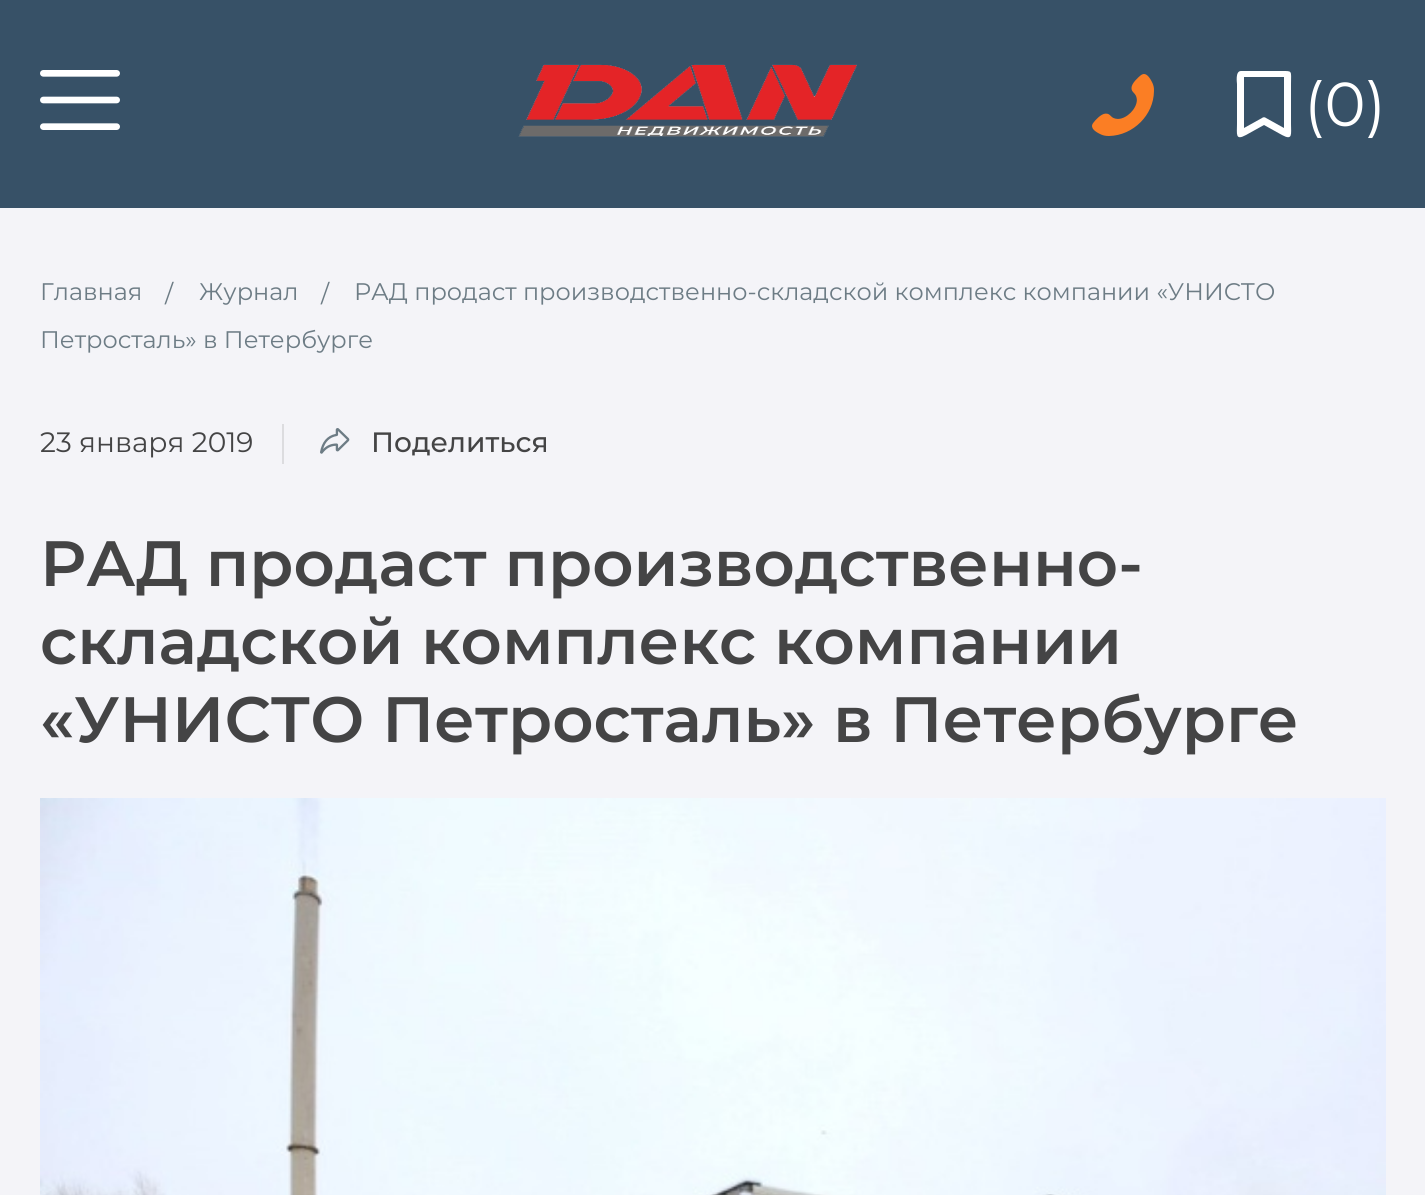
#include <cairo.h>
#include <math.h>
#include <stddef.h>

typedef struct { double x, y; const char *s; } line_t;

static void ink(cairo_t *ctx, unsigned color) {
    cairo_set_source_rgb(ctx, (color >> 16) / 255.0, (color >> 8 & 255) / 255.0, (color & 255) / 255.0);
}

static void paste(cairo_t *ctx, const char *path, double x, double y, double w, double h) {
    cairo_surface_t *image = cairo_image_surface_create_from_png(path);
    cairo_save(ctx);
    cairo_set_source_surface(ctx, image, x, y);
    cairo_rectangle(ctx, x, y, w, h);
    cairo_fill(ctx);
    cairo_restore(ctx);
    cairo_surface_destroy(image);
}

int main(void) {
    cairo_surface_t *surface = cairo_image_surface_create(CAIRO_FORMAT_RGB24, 1425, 1195);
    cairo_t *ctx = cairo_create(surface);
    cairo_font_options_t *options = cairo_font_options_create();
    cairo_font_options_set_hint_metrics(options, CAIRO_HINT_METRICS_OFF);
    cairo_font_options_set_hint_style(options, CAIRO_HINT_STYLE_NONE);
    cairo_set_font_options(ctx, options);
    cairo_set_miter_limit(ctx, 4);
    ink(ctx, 0xF4F4F8);
    cairo_paint(ctx);
    ink(ctx, 0x375167);
    cairo_rectangle(ctx, 0, 0, 1425, 208);
    cairo_fill(ctx);
    paste(ctx, "media/1.png", 40, 70, 80, 60);
    paste(ctx, "media/2.png", 518, 64, 339, 73);
    paste(ctx, "media/3.png", 1092, 74, 62, 62);
    ink(ctx, 0xFFFFFF);
    cairo_new_path(ctx);
    cairo_move_to(ctx, 1241, 71);
    cairo_line_to(ctx, 1280, 71);
    cairo_curve_to(ctx, 1293, 71, 1291, 70, 1291, 84);
    cairo_line_to(ctx, 1291, 124);
    cairo_curve_to(ctx, 1291, 134, 1293, 141, 1282, 135);
    cairo_line_to(ctx, 1264, 125);
    cairo_line_to(ctx, 1246, 135);
    cairo_curve_to(ctx, 1235, 141, 1237, 134, 1237, 124);
    cairo_line_to(ctx, 1237, 84);
    cairo_curve_to(ctx, 1237, 83, 1235, 71, 1241, 71);
    cairo_close_path(ctx);
    cairo_move_to(ctx, 1284, 128);
    cairo_line_to(ctx, 1284, 77);
    cairo_line_to(ctx, 1244, 77);
    cairo_line_to(ctx, 1244, 128);
    cairo_line_to(ctx, 1262, 118);
    cairo_curve_to(ctx, 1263, 117, 1265, 117, 1266, 118);
    cairo_close_path(ctx);
    cairo_fill(ctx);
    cairo_select_font_face(ctx, "Montserrat", CAIRO_FONT_SLANT_NORMAL, CAIRO_FONT_WEIGHT_NORMAL);
    cairo_set_font_size(ctx, 62);
    cairo_move_to(ctx, 1304, 126);
    cairo_show_text(ctx, "(0)");
    cairo_set_font_size(ctx, 24);
    ink(ctx, 0x6D7C85);
    {
        static const line_t items[] = {
            {40, 300, "Главная"},
            {165, 302, "/"},
            {199, 300, "Журнал"},
            {321, 302, "/"},
            {354, 300, "РАД продаст производственно-складской комплекс компании «УНИСТО"},
            {40, 348, "Петросталь» в Петербурге"},
        };
        for (size_t i = 0; i < sizeof items / sizeof *items; i++) {
            cairo_move_to(ctx, items[i].x, items[i].y);
            cairo_show_text(ctx, items[i].s);
        }
    }
    cairo_set_font_size(ctx, 28);
    ink(ctx, 0x444445);
    cairo_move_to(ctx, 40, 452);
    cairo_show_text(ctx, "23 января 2019");
    ink(ctx, 0xDCDCDF);
    cairo_rectangle(ctx, 282, 424, 2, 40);
    cairo_fill(ctx);
    paste(ctx, "media/4.png", 320, 428, 30, 26);
    cairo_select_font_face(ctx, "Montserrat Medium", CAIRO_FONT_SLANT_NORMAL, CAIRO_FONT_WEIGHT_NORMAL);
    ink(ctx, 0x444445);
    cairo_move_to(ctx, 371, 452);
    cairo_show_text(ctx, "Поделиться");
    cairo_select_font_face(ctx, "Montserrat SemiBold", CAIRO_FONT_SLANT_NORMAL, CAIRO_FONT_WEIGHT_NORMAL);
    cairo_set_font_size(ctx, 64);
    {
        static const line_t items[] = {
            {40, 586, "РАД продаст производственно-"},
            {40, 664, "складской комплекс компании"},
            {40, 742, "«УНИСТО Петросталь» в Петербурге"},
        };
        for (size_t i = 0; i < sizeof items / sizeof *items; i++) {
            cairo_move_to(ctx, items[i].x, items[i].y);
            cairo_show_text(ctx, items[i].s);
        }
    }
    paste(ctx, "media/5.png", 40, 798, 1346, 397);
    cairo_surface_write_to_png(surface, "image.png");
    cairo_font_options_destroy(options);
    cairo_destroy(ctx);
    cairo_surface_destroy(surface);
    return 0;
}
